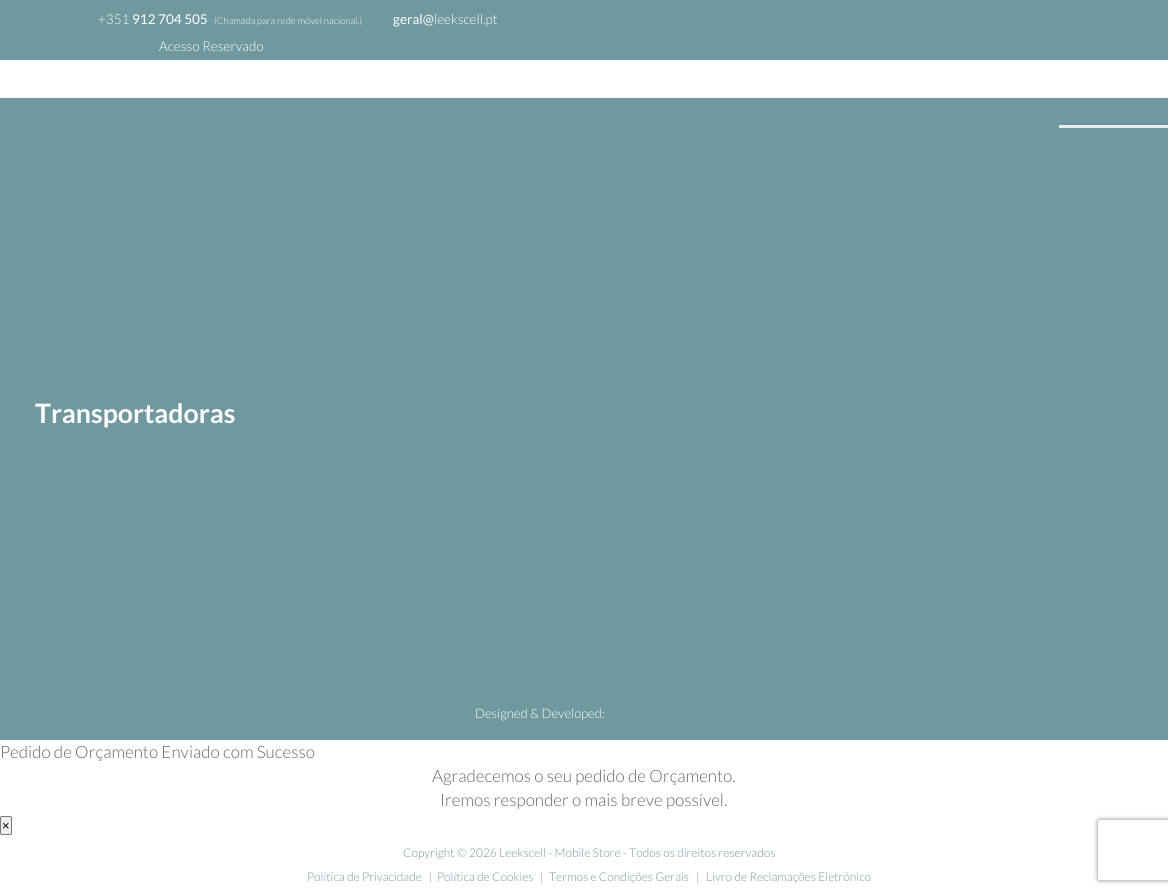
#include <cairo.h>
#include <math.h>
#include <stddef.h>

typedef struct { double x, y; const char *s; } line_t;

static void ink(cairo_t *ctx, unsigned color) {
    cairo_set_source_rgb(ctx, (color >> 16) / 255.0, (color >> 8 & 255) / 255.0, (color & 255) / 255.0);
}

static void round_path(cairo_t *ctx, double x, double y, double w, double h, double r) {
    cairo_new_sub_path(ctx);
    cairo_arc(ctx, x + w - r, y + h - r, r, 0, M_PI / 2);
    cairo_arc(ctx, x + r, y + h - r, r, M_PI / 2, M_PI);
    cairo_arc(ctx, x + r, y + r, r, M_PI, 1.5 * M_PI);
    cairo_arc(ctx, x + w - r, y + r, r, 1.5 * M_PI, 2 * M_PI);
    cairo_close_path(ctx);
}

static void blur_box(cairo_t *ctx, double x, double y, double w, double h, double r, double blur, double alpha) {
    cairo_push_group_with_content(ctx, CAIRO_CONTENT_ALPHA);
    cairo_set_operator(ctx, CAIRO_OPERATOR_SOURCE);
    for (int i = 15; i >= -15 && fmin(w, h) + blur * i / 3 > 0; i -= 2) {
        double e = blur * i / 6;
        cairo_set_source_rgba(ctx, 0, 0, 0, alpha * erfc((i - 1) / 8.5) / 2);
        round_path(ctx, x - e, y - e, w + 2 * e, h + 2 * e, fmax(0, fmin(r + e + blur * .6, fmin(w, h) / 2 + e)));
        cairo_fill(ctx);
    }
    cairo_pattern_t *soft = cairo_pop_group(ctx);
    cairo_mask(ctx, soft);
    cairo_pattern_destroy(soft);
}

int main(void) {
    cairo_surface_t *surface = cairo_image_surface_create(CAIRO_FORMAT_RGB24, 1168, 894);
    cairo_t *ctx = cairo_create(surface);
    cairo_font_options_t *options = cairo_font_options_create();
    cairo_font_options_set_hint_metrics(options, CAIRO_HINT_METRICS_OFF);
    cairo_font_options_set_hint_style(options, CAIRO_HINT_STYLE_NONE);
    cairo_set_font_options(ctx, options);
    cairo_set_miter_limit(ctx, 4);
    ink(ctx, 0xFFFFFF);
    cairo_paint(ctx);
    ink(ctx, 0x70999F);
    cairo_rectangle(ctx, 0, 0, 1168, 60);
    cairo_fill(ctx);
    cairo_select_font_face(ctx, "Lato Light", CAIRO_FONT_SLANT_NORMAL, CAIRO_FONT_WEIGHT_NORMAL);
    cairo_set_font_size(ctx, 13.5);
    ink(ctx, 0xFFFFFF);
    cairo_move_to(ctx, 98, 24);
    cairo_show_text(ctx, "+351");
    cairo_select_font_face(ctx, "Lato", CAIRO_FONT_SLANT_NORMAL, CAIRO_FONT_WEIGHT_NORMAL);
    cairo_move_to(ctx, 132, 24);
    cairo_show_text(ctx, "912 704 505");
    cairo_select_font_face(ctx, "Lato Light", CAIRO_FONT_SLANT_NORMAL, CAIRO_FONT_WEIGHT_NORMAL);
    cairo_set_font_size(ctx, 9.5);
    cairo_move_to(ctx, 214, 24);
    cairo_show_text(ctx, "(Chamada para rede móvel nacional.)");
    cairo_select_font_face(ctx, "Lato", CAIRO_FONT_SLANT_NORMAL, CAIRO_FONT_WEIGHT_NORMAL);
    cairo_set_font_size(ctx, 13.5);
    cairo_move_to(ctx, 393, 24);
    cairo_show_text(ctx, "geral@");
    cairo_select_font_face(ctx, "Lato Light", CAIRO_FONT_SLANT_NORMAL, CAIRO_FONT_WEIGHT_NORMAL);
    cairo_move_to(ctx, 434, 24);
    cairo_show_text(ctx, "leekscell.pt");
    cairo_move_to(ctx, 159, 51);
    cairo_show_text(ctx, "Acesso Reservado");
    ink(ctx, 0x70999F);
    cairo_rectangle(ctx, 0, 98, 1168, 642);
    cairo_fill(ctx);
    ink(ctx, 0xECECEC);
    cairo_rectangle(ctx, 1059, 125, 109, 3);
    cairo_fill(ctx);
    cairo_select_font_face(ctx, "Lato", CAIRO_FONT_SLANT_NORMAL, CAIRO_FONT_WEIGHT_BOLD);
    cairo_set_font_size(ctx, 26.75);
    ink(ctx, 0xFFFFFF);
    cairo_move_to(ctx, 35, 423);
    cairo_show_text(ctx, "Transportadoras");
    cairo_select_font_face(ctx, "Lato Light", CAIRO_FONT_SLANT_NORMAL, CAIRO_FONT_WEIGHT_NORMAL);
    cairo_set_font_size(ctx, 13);
    cairo_move_to(ctx, 475, 718);
    cairo_show_text(ctx, "Designed & Developed:");
    cairo_set_font_size(ctx, 17);
    ink(ctx, 0x666666);
    {
        static const line_t items[] = {
            {0, 758, "Pedido de Orçamento Enviado com Sucesso"},
            {432, 782, "Agradecemos o seu pedido de Orçamento."},
            {440, 806, "Iremos responder o mais breve possível."},
        };
        for (size_t i = 0; i < sizeof items / sizeof *items; i++) {
            cairo_move_to(ctx, items[i].x, items[i].y);
            cairo_show_text(ctx, items[i].s);
        }
    }
    ink(ctx, 0xEFEFEF);
    round_path(ctx, 0.5, 816.5, 11, 18, 1.5);
    cairo_fill_preserve(ctx);
    ink(ctx, 0x767676);
    cairo_set_line_width(ctx, 1);
    cairo_stroke(ctx);
    cairo_select_font_face(ctx, "Liberation Sans", CAIRO_FONT_SLANT_NORMAL, CAIRO_FONT_WEIGHT_NORMAL);
    cairo_set_font_size(ctx, 13);
    ink(ctx, 0x000000);
    cairo_move_to(ctx, 2, 830);
    cairo_show_text(ctx, "×");
    cairo_select_font_face(ctx, "Lato Light", CAIRO_FONT_SLANT_NORMAL, CAIRO_FONT_WEIGHT_NORMAL);
    cairo_set_font_size(ctx, 12);
    ink(ctx, 0x70999F);
    {
        static const line_t items[] = {
            {403, 857, "Copyright © 2026 Leekscell - Mobile Store - Todos os direitos reservados"},
            {307, 881, "Política de Privacidade"},
            {429, 881, "|"},
            {437, 881, "Política de Cookies"},
            {540, 881, "|"},
            {549, 881, "Termos e Condições Gerais"},
            {696, 881, "|"},
            {706, 881, "Livro de Reclamações Eletrónico"},
        };
        for (size_t i = 0; i < sizeof items / sizeof *items; i++) {
            cairo_move_to(ctx, items[i].x, items[i].y);
            cairo_show_text(ctx, items[i].s);
        }
    }
    cairo_save(ctx);
    cairo_set_fill_rule(ctx, CAIRO_FILL_RULE_EVEN_ODD);
    cairo_new_path(ctx);
    cairo_move_to(ctx, 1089, 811);
    cairo_line_to(ctx, 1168, 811);
    cairo_line_to(ctx, 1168, 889);
    cairo_line_to(ctx, 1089, 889);
    cairo_close_path(ctx);
    cairo_move_to(ctx, 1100, 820);
    cairo_line_to(ctx, 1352, 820);
    cairo_curve_to(ctx, 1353, 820, 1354, 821, 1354, 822);
    cairo_line_to(ctx, 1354, 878);
    cairo_curve_to(ctx, 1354, 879, 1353, 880, 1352, 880);
    cairo_line_to(ctx, 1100, 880);
    cairo_curve_to(ctx, 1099, 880, 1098, 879, 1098, 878);
    cairo_line_to(ctx, 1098, 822);
    cairo_curve_to(ctx, 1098, 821, 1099, 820, 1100, 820);
    cairo_close_path(ctx);
    cairo_clip(ctx);
    ink(ctx, 0x808080);
    blur_box(ctx, 1098, 820, 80, 60, 2, 2.5, 1);
    cairo_restore(ctx);
    cairo_surface_write_to_png(surface, "image.png");
    cairo_font_options_destroy(options);
    cairo_destroy(ctx);
    cairo_surface_destroy(surface);
    return 0;
}
